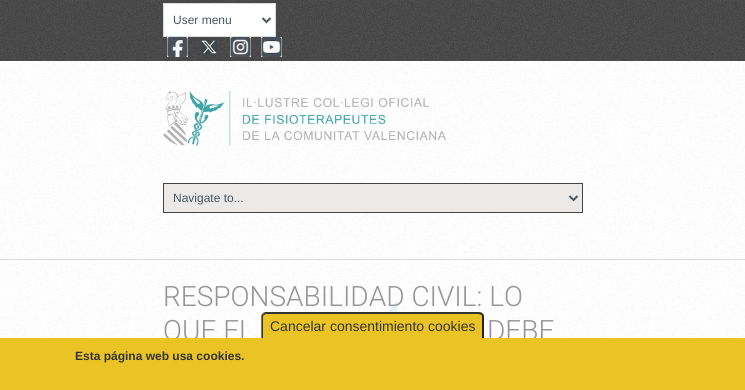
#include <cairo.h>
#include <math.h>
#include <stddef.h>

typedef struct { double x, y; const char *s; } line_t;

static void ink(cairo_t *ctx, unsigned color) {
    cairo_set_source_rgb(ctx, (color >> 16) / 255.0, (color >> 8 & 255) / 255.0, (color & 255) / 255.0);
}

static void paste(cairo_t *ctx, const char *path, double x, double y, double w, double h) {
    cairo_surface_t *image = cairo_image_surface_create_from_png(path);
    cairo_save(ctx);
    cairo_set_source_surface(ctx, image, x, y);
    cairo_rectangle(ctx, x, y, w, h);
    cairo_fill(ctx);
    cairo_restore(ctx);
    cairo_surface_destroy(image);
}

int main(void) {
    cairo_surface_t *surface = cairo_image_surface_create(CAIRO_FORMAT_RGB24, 745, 390);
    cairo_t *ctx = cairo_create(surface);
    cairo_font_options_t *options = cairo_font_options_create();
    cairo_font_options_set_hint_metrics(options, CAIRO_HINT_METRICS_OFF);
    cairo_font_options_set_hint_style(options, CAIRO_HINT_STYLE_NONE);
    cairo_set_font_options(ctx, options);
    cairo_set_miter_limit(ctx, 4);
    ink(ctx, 0xFFFFFF);
    cairo_paint(ctx);
    paste(ctx, "media/1.png", 0, 61, 745, 198);
    paste(ctx, "media/2.png", 0, 0, 745, 61);
    ink(ctx, 0xFFFFFF);
    cairo_rectangle(ctx, 163.5, 3.5, 112, 33);
    cairo_fill_preserve(ctx);
    ink(ctx, 0xDBDBDB);
    cairo_set_line_width(ctx, 1);
    cairo_stroke(ctx);
    cairo_new_path(ctx);
    cairo_move_to(ctx, 262.5, 18);
    cairo_line_to(ctx, 266.5, 22);
    cairo_line_to(ctx, 270.5, 18);
    ink(ctx, 0x49555F);
    cairo_set_line_width(ctx, 2);
    cairo_stroke(ctx);
    cairo_select_font_face(ctx, "Liberation Sans", CAIRO_FONT_SLANT_NORMAL, CAIRO_FONT_WEIGHT_NORMAL);
    cairo_set_font_size(ctx, 12);
    cairo_move_to(ctx, 173, 24);
    cairo_show_text(ctx, "User menu");
    paste(ctx, "media/3.png", 167, 37, 21, 20);
    paste(ctx, "media/4.png", 199, 38, 20, 18);
    paste(ctx, "media/5.png", 230, 37, 21, 20);
    paste(ctx, "media/6.png", 261, 37, 21, 20);
    ink(ctx, 0xDBDBDB);
    cairo_rectangle(ctx, 0, 259, 745, 1);
    cairo_fill(ctx);
    paste(ctx, "media/7.png", 163, 91, 283, 55);
    ink(ctx, 0xECEAE9);
    cairo_rectangle(ctx, 163.5, 183.5, 419, 29);
    cairo_fill_preserve(ctx);
    ink(ctx, 0x444444);
    cairo_set_line_width(ctx, 1);
    cairo_stroke(ctx);
    cairo_new_path(ctx);
    cairo_move_to(ctx, 569.5, 196);
    cairo_line_to(ctx, 573.5, 200);
    cairo_line_to(ctx, 577.5, 196);
    ink(ctx, 0x49555F);
    cairo_set_line_width(ctx, 2);
    cairo_stroke(ctx);
    cairo_move_to(ctx, 173, 202);
    cairo_show_text(ctx, "Navigate to...");
    paste(ctx, "media/8.png", 0, 260, 745, 78);
    paste(ctx, "media/9.png", 388, 302, 10, 10);
    cairo_select_font_face(ctx, "Roboto Light", CAIRO_FONT_SLANT_NORMAL, CAIRO_FONT_WEIGHT_NORMAL);
    cairo_set_font_size(ctx, 28);
    ink(ctx, 0x959595);
    {
        static const line_t items[] = {
            {163, 306, "RESPONSABILIDAD CIVIL: LO"},
            {163, 340, "QUE EL"},
            {487, 340, "DEBE"},
        };
        for (size_t i = 0; i < sizeof items / sizeof *items; i++) {
            cairo_move_to(ctx, items[i].x, items[i].y);
            cairo_show_text(ctx, items[i].s);
        }
    }
    ink(ctx, 0xEAC425);
    cairo_rectangle(ctx, 0, 338, 745, 52);
    cairo_fill(ctx);
    cairo_new_path(ctx);
    cairo_move_to(ctx, 266, 312);
    cairo_line_to(ctx, 479, 312);
    cairo_curve_to(ctx, 482, 312, 484, 314, 484, 317);
    cairo_line_to(ctx, 484, 338);
    cairo_line_to(ctx, 261, 338);
    cairo_line_to(ctx, 261, 317);
    cairo_curve_to(ctx, 261, 314, 263, 312, 266, 312);
    cairo_close_path(ctx);
    cairo_fill(ctx);
    ink(ctx, 0x333333);
    cairo_new_path(ctx);
    cairo_move_to(ctx, 266, 312);
    cairo_line_to(ctx, 263, 313);
    cairo_line_to(ctx, 264, 315);
    cairo_line_to(ctx, 266, 314);
    cairo_line_to(ctx, 479, 314);
    cairo_line_to(ctx, 481, 315);
    cairo_line_to(ctx, 483, 314);
    cairo_curve_to(ctx, 482, 313, 481, 312, 479, 312);
    cairo_close_path(ctx);
    cairo_fill(ctx);
    ink(ctx, 0x222222);
    cairo_new_path(ctx);
    cairo_move_to(ctx, 482, 338);
    cairo_line_to(ctx, 484, 338);
    cairo_line_to(ctx, 484, 317);
    cairo_curve_to(ctx, 484, 315.5, 483.5, 314.5, 483, 313.5);
    cairo_line_to(ctx, 481.5, 315);
    cairo_curve_to(ctx, 482, 315.5, 482, 316, 482, 317);
    cairo_close_path(ctx);
    cairo_fill(ctx);
    ink(ctx, 0x333333);
    cairo_new_path(ctx);
    cairo_move_to(ctx, 261.5, 338);
    cairo_line_to(ctx, 261.5, 315.5);
    cairo_line_to(ctx, 262.5, 313.5);
    cairo_line_to(ctx, 264, 315);
    cairo_curve_to(ctx, 263.5, 315.5, 263, 316, 263, 317);
    cairo_line_to(ctx, 263, 338);
    cairo_close_path(ctx);
    cairo_fill(ctx);
    cairo_select_font_face(ctx, "Liberation Sans", CAIRO_FONT_SLANT_NORMAL, CAIRO_FONT_WEIGHT_NORMAL);
    cairo_set_font_size(ctx, 14);
    cairo_move_to(ctx, 270, 331);
    cairo_show_text(ctx, "Cancelar consentimiento cookies");
    cairo_select_font_face(ctx, "Liberation Sans", CAIRO_FONT_SLANT_NORMAL, CAIRO_FONT_WEIGHT_BOLD);
    cairo_set_font_size(ctx, 12);
    cairo_move_to(ctx, 75, 360);
    cairo_show_text(ctx, "Esta página web usa cookies.");
    cairo_surface_write_to_png(surface, "image.png");
    cairo_font_options_destroy(options);
    cairo_destroy(ctx);
    cairo_surface_destroy(surface);
    return 0;
}
